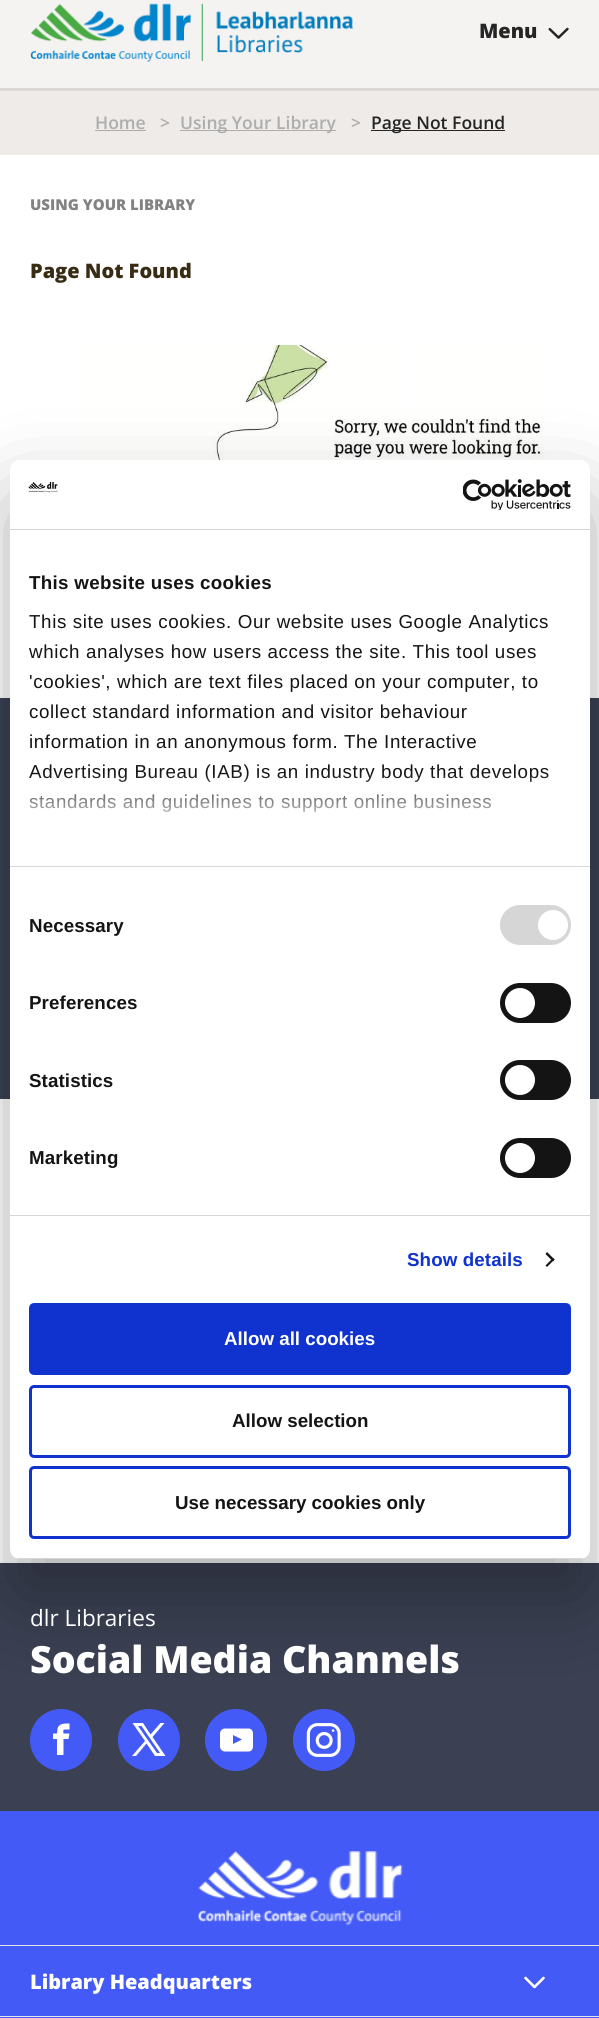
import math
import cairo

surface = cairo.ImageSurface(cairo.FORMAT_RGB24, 599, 2018)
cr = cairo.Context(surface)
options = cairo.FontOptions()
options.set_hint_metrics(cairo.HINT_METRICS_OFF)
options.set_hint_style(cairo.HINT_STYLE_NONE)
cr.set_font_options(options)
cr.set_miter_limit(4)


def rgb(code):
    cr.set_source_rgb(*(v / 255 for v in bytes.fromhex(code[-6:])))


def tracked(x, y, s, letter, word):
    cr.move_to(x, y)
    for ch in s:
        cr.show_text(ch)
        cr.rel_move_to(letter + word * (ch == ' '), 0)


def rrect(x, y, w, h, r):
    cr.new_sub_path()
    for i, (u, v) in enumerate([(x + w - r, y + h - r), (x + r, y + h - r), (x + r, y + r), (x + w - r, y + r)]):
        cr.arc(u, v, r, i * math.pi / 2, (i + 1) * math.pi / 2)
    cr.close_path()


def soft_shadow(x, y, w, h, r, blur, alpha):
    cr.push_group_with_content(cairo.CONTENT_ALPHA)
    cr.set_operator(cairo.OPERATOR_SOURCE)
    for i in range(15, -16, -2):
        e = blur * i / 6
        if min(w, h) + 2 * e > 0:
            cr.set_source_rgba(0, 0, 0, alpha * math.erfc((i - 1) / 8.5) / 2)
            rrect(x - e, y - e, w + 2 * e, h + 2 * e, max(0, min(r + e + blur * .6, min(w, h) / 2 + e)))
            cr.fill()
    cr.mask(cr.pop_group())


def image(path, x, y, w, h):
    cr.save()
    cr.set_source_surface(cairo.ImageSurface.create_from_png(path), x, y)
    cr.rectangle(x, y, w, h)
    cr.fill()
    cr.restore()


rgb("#ffffff")
cr.paint()
rgb("#f5f3f2")
cr.rectangle(0, 0, 599, 88)
cr.fill()
rgb("#dbd8d6")
cr.rectangle(0, 88, 599, 3)
cr.fill()
image("img/1.png", 30, 3, 323, 59)
image("img/2.png", 548, 27, 21, 12)
for x, y, w, h, color in [
    (0, 91, 599, 64, "#eeebe9"),
    (95, 130, 51, 1, "#adadad"),
    (180, 130, 156, 1, "#adadad"),
    (371, 130, 134, 1, "#252525"),
]:
    rgb(color)
    cr.rectangle(x, y, w, h)
    cr.fill()
image("img/3.png", 80, 344, 470, 116)
rgb("#3b4153")
cr.rectangle(0, 698, 599, 401)
cr.fill()
cr.rectangle(0, 1563, 599, 248)
cr.fill()
rgb("#435af6")
cr.arc(61, 1740, 31, 0, 2 * math.pi)
cr.fill()
rgb("#ffffff")
cr.new_path()
cr.move_to(64.5, 1729.5)
cr.line_to(69.5, 1729.5)
cr.line_to(69.5, 1723.5)
cr.curve_to(65, 1723.5, 58.5, 1723, 57.5, 1729)
cr.line_to(57, 1733.5)
cr.line_to(53, 1733.5)
cr.line_to(53, 1739)
cr.line_to(57, 1739)
cr.line_to(57, 1755)
cr.line_to(63.5, 1755)
cr.line_to(63.5, 1739)
cr.line_to(68.5, 1739)
cr.line_to(69.5, 1733.5)
cr.line_to(63.5, 1733.5)
cr.curve_to(63.5, 1732.5, 62.5, 1729.5, 64.5, 1729.5)
cr.close_path()
cr.fill()
rgb("#435af6")
cr.arc(149, 1740, 31, 0, 2 * math.pi)
cr.fill()
rgb("#ffffff")
cr.set_fill_rule(cairo.FILL_RULE_EVEN_ODD)
cr.new_path()
cr.move_to(165.5, 1756)
cr.line_to(152.5, 1737)
cr.line_to(164.5, 1723)
cr.line_to(160.5, 1723)
cr.line_to(150.5, 1734.5)
cr.line_to(143, 1723)
cr.line_to(132.5, 1723)
cr.line_to(145, 1741)
cr.line_to(132, 1756)
cr.line_to(136, 1756)
cr.line_to(146.5, 1743.5)
cr.line_to(155, 1756)
cr.close_path()
cr.move_to(141.5, 1726)
cr.line_to(160, 1753)
cr.line_to(157, 1753)
cr.line_to(138, 1726)
cr.close_path()
cr.fill()
rgb("#435af6")
cr.arc(236, 1740, 31, 0, 2 * math.pi)
cr.fill()
rgb("#ffffff")
cr.set_fill_rule(cairo.FILL_RULE_WINDING)
cr.new_path()
cr.move_to(253, 1746.5)
cr.curve_to(253, 1749.5, 251, 1751.5, 248.5, 1751.5)
cr.line_to(225, 1751.5)
cr.curve_to(222.5, 1751.5, 220, 1749.5, 220, 1746.5)
cr.line_to(220, 1733.5)
cr.curve_to(220, 1730.5, 222.5, 1728.5, 225, 1728.5)
cr.line_to(248.5, 1728.5)
cr.curve_to(251, 1728.5, 253, 1730.5, 253, 1733.5)
cr.close_path()
cr.move_to(233, 1744)
cr.line_to(242, 1739.5)
cr.line_to(233, 1735)
cr.close_path()
cr.fill()
image("img/4.png", 293, 1709, 62, 62)
rgb("#435af6")
cr.rectangle(0, 1811, 599, 207)
cr.fill()
image("img/5.png", 197, 1851, 206, 74)
rgb("#e5e7eb")
cr.rectangle(0, 1945, 599, 1)
cr.fill()
cr.rectangle(0, 2016, 599, 1)
cr.fill()
cr.new_path()
cr.move_to(543.5, 1978)
cr.line_to(534.5, 1987)
cr.line_to(525.5, 1978)
rgb("#ffffff")
cr.set_line_width(2.6)
cr.set_line_cap(cairo.LINE_CAP_ROUND)
cr.set_line_join(cairo.LINE_JOIN_ROUND)
cr.stroke()
rgb("#000000")
soft_shadow(10, 500, 580, 1099, 10, 42.5, 0.3)
rgb("#ffffff")
rrect(10, 460, 580, 1099, 10)
cr.fill()
rgb("#d6d6d6")
cr.rectangle(10, 529, 580, 1)
cr.fill()
image("img/6.png", 28, 481, 30, 12)
image("img/7.png", 463, 479, 108, 31)
cr.rectangle(10, 866, 580, 1)
cr.fill()
cr.rectangle(10, 1215, 580, 1)
cr.fill()
rrect(500, 905, 71, 40, 20)
cr.fill()
rgb("#ffffff")
cr.arc(553, 925, 15, 0, 2 * math.pi)
cr.fill()
rgb("#141414")
rrect(500, 983, 71, 40, 20)
cr.fill()
rgb("#ffffff")
cr.arc(520, 1003, 15, 0, 2 * math.pi)
cr.fill()
rgb("#141414")
rrect(500, 1060, 71, 40, 20)
cr.fill()
rgb("#ffffff")
cr.arc(520, 1080, 15, 0, 2 * math.pi)
cr.fill()
rgb("#141414")
rrect(500, 1138, 71, 40, 20)
cr.fill()
rgb("#ffffff")
cr.arc(520, 1158, 15, 0, 2 * math.pi)
cr.fill()
rgb("#141414")
cr.new_path()
cr.move_to(547, 1252)
cr.line_to(554.5, 1259.5)
cr.line_to(553, 1261.5)
cr.line_to(545.5, 1254)
cr.close_path()
cr.fill()
cr.new_path()
cr.move_to(553, 1258)
cr.line_to(554.5, 1259.5)
cr.line_to(547, 1267)
cr.line_to(545.5, 1265.5)
cr.close_path()
cr.fill()
cr.save()
rrect(10, 460, 580, 1099, 10)
cr.clip()
rgb("#d6d6d6")
cr.rectangle(10, 1558, 580, 1)
cr.fill()
cr.restore()
rgb("#1032cf")
rrect(30.5, 1304.5, 539, 69, 3.5)
cr.fill_preserve()
cr.set_line_width(3)
cr.set_line_cap(cairo.LINE_CAP_BUTT)
cr.set_line_join(cairo.LINE_JOIN_MITER)
cr.stroke()
rrect(30.5, 1386.5, 539, 70, 3.5)
cr.stroke()
rrect(30.5, 1467.5, 539, 70, 3.5)
cr.stroke()
cr.select_font_face("Open Sans ExtraBold")
cr.set_font_size(20)
rgb("#252525")
cr.move_to(479, 38)
cr.show_text("Menu")
cr.select_font_face("Open Sans SemiBold")
cr.set_font_size(17.5)
rgb("#adadad")
for x, y, s in [
    (95, 129, "Home"),
    (160, 129, ">"),
    (180, 129, "Using Your Library"),
    (351, 129, ">"),
]:
    cr.move_to(x, y)
    cr.show_text(s)
rgb("#252525")
cr.move_to(371, 129)
cr.show_text("Page Not Found")
cr.select_font_face("Open Sans ExtraBold")
cr.set_font_size(15)
rgb("#838282")
cr.move_to(30, 210)
cr.show_text("USING YOUR LIBRARY")
cr.set_font_size(20)
rgb("#382c14")
cr.move_to(30, 278)
cr.show_text("Page Not Found")
cr.select_font_face("Open Sans")
cr.set_font_size(22.5)
rgb("#ffffff")
cr.move_to(30, 1626)
cr.show_text("dlr Libraries")
cr.select_font_face("Open Sans ExtraBold")
cr.set_font_size(37.5)
cr.move_to(30, 1673)
cr.show_text("Social Media Channels")
cr.set_font_size(20)
cr.move_to(30, 1989)
cr.show_text("Library Headquarters")
cr.select_font_face("Liberation Sans", cairo.FONT_SLANT_NORMAL, cairo.FONT_WEIGHT_BOLD)
cr.set_font_size(18.75)
rgb("#141414")
tracked(29, 589, "This website uses cookies", 0.3, 0)
cr.select_font_face("Liberation Sans")
for x, y, s in [
    (29, 628, "This site uses cookies. Our website uses Google Analytics"),
    (29, 658, "which analyses how users access the site. This tool uses"),
    (29, 688, "'cookies', which are text files placed on your computer, to"),
    (29, 718, "collect standard information and visitor behaviour"),
    (29, 748, "information in an anonymous form. The Interactive"),
    (29, 778, "Advertising Bureau (IAB) is an industry body that develops"),
    (29, 808, "standards and guidelines to support online business"),
]:
    tracked(x, y, s, 0.62, 0)
gradient = cairo.LinearGradient(292, 867, 292, 773)
gradient.add_color_stop_rgba(0, 1, 1, 1, 1)
gradient.add_color_stop_rgba(0.5, 1, 1, 1, 0.8)
gradient.add_color_stop_rgba(1, 1, 1, 1, 0)
cr.set_source(gradient)
cr.rectangle(29, 774, 520, 38)
cr.fill()
cr.select_font_face("Liberation Sans", cairo.FONT_SLANT_NORMAL, cairo.FONT_WEIGHT_BOLD)
rgb("#141414")
for x, y, s in [
    (29, 932, "Necessary"),
    (29, 1009, "Preferences"),
    (29, 1087, "Statistics"),
    (29, 1164, "Marketing"),
]:
    tracked(x, y, s, 0.1, 0)
rgb("#1032cf")
tracked(407, 1266, "Show details", 0.1, 0)
rgb("#ffffff")
cr.move_to(224, 1345)
cr.show_text("Allow all cookies")
rgb("#141414")
cr.move_to(232, 1427)
cr.show_text("Allow selection")
cr.move_to(175, 1509)
cr.show_text("Use necessary cookies only")
surface.write_to_png("page.png")
